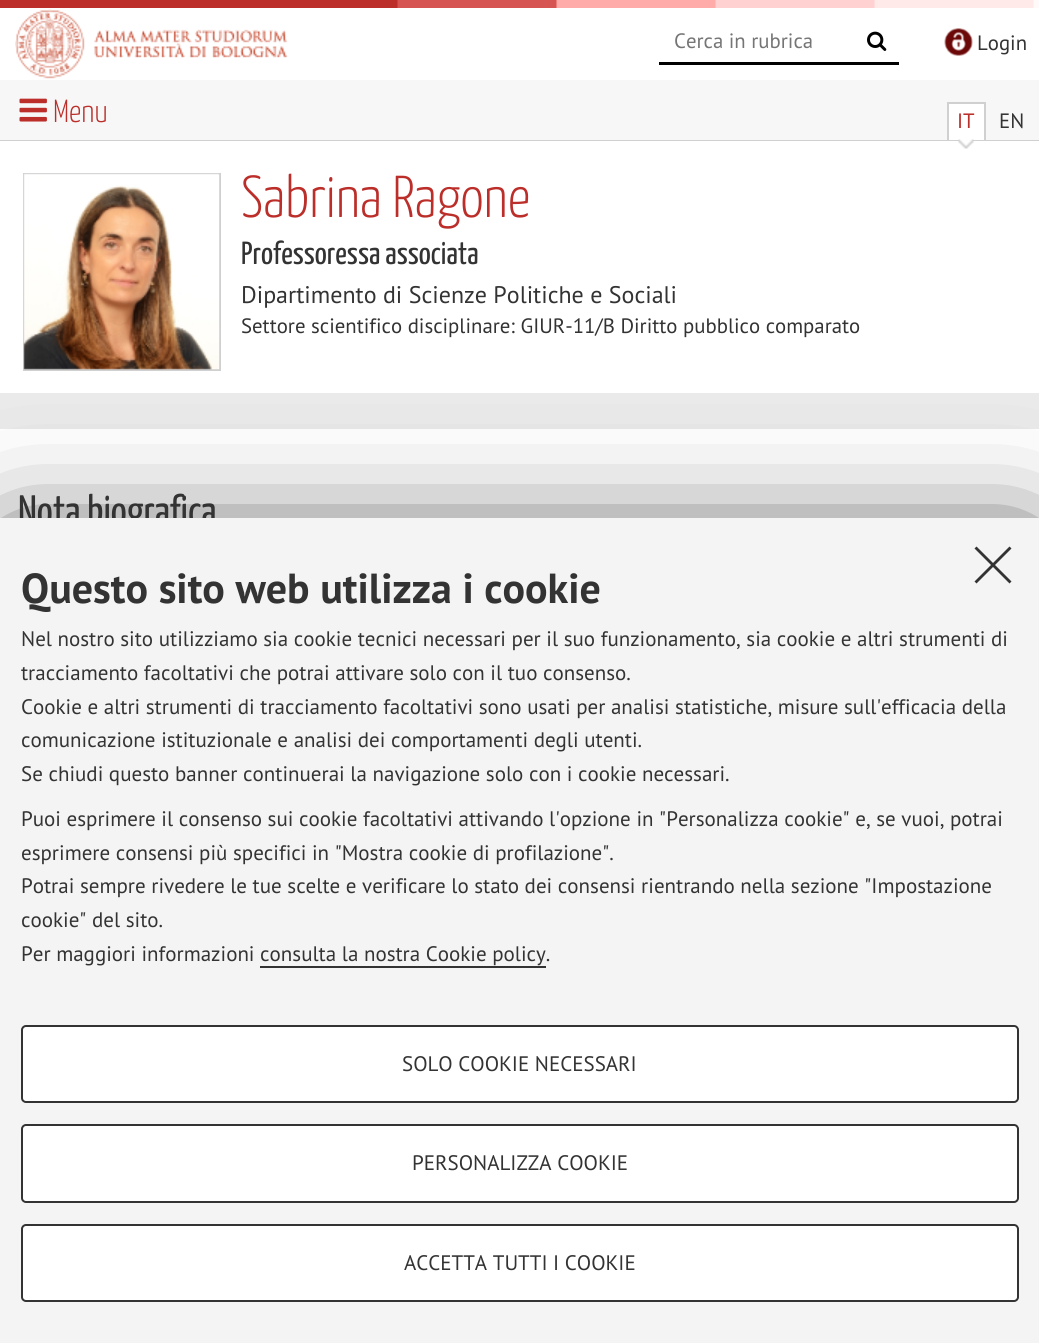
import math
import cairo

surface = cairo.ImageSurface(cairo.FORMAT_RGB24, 1039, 1343)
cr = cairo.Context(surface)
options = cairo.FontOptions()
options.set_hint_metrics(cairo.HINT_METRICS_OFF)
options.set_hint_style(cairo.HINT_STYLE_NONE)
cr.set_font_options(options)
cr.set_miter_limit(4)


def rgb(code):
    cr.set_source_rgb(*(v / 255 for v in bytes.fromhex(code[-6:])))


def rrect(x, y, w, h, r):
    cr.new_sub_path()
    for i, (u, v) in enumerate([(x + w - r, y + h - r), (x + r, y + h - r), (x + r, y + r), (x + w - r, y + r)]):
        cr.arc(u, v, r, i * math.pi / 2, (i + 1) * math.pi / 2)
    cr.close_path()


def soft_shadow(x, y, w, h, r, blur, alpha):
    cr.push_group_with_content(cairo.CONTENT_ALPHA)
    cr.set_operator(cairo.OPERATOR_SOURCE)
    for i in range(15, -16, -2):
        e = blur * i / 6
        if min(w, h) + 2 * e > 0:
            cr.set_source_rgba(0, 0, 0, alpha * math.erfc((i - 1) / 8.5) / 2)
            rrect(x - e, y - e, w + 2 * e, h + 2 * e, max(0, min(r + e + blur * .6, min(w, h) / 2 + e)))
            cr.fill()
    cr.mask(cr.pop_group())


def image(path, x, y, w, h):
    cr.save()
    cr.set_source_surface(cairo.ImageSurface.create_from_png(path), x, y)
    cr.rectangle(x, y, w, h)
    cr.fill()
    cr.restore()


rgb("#eaeaea")
cr.paint()
image("img/1.png", 0, 0, 1039, 8)
rgb("#ffffff")
cr.rectangle(0, 8, 1039, 72)
cr.fill()
image("img/2.png", 15, 9, 273, 70)
rgb("#000000")
cr.rectangle(659, 62, 240, 3)
cr.fill()
image("img/3.png", 867, 31, 20, 20)
image("img/4.png", 944, 28, 29, 28)
rgb("#f7f7f7")
cr.rectangle(0, 80, 1039, 60)
cr.fill()
rgb("#d0d0d0")
cr.rectangle(0, 140, 1039, 1)
cr.fill()
image("img/5.png", 19, 98, 28, 24)
for x, y, w, h, color in [
    (949, 104, 35, 36, "#ffffff"),
    (947, 102, 39, 2, "#d0d0d0"),
    (984, 102, 2, 38, "#d0d0d0"),
    (947, 102, 2, 38, "#d0d0d0"),
    (0, 141, 1039, 252, "#ffffff"),
]:
    rgb(color)
    cr.rectangle(x, y, w, h)
    cr.fill()
image("img/6.png", 958, 139, 16, 10)
cr.rectangle(24, 174, 196, 196)
rgb("#d0d0d0")
cr.stroke()
image("img/7.png", 23, 173, 197, 197)
rgb("#ffffff")
cr.rectangle(0, 429, 1039, 89)
cr.fill()
rgb("#000000")
soft_shadow(12, 554, 1016, 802, 0, 60, 1)
cr.select_font_face("PT Sans")
cr.set_font_size(20.8)
rgb("#757575")
cr.move_to(674, 48)
cr.show_text("Cerca in rubrica")
rgb("#333333")
cr.move_to(977, 50)
cr.show_text("Login")
cr.select_font_face("Yanone Kaffeesatz Light")
cr.set_font_size(32)
rgb("#bb2e29")
cr.move_to(53, 122)
cr.show_text("Menu")
cr.select_font_face("PT Sans")
cr.set_font_size(20.8)
cr.move_to(957, 128)
cr.show_text("IT")
rgb("#333333")
cr.move_to(999, 128)
cr.show_text("EN")
cr.select_font_face("Yanone Kaffeesatz Light")
cr.set_font_size(59)
rgb("#bb2e29")
cr.move_to(241, 217)
cr.show_text("Sabrina Ragone")
cr.select_font_face("Yanone Kaffeesatz")
cr.set_font_size(32)
rgb("#333333")
cr.move_to(241, 264)
cr.show_text("Professoressa associata")
cr.select_font_face("PT Sans")
cr.set_font_size(24)
cr.move_to(241, 303)
cr.show_text("Dipartimento di Scienze Politiche e Sociali")
cr.set_font_size(20.8)
cr.move_to(241, 333)
cr.show_text("Settore scientifico disciplinare: GIUR-11/B Diritto pubblico comparato")
cr.select_font_face("Yanone Kaffeesatz")
cr.set_font_size(42.5)
cr.move_to(18, 525)
cr.show_text("Nota biografica")
rgb("#f4f4f4")
cr.rectangle(0, 518, 1039, 825)
cr.fill()
rgb("#333333")
cr.new_path()
cr.move_to(1009.5, 546.5)
cr.line_to(1011.5, 548.5)
cr.line_to(976.5, 583.5)
cr.line_to(974.5, 581.5)
cr.close_path()
cr.fill()
cr.new_path()
cr.move_to(974.5, 548.5)
cr.line_to(976.5, 546.5)
cr.line_to(1011.5, 581.5)
cr.line_to(1009.5, 583.5)
cr.close_path()
cr.fill()
cr.select_font_face("PT Sans", cairo.FONT_SLANT_NORMAL, cairo.FONT_WEIGHT_BOLD)
cr.set_font_size(42)
cr.move_to(21, 603)
cr.show_text("Questo sito web utilizza i cookie")
cr.select_font_face("PT Sans")
cr.set_font_size(21)
for x, y, s in [
    (21, 646, "Nel nostro sito utilizziamo sia cookie tecnici necessari per il suo funzionamento, sia cookie e altri strumenti di"),
    (21, 680, "tracciamento facoltativi che potrai attivare solo con il tuo consenso."),
    (21, 714, "Cookie e altri strumenti di tracciamento facoltativi sono usati per analisi statistiche, misure sull'efficacia della"),
    (21, 747, "comunicazione istituzionale e analisi dei comportamenti degli utenti."),
    (21, 781, "Se chiudi questo banner continuerai la navigazione solo con i cookie necessari."),
    (21, 826, "Puoi esprimere il consenso sui cookie facoltativi attivando l'opzione in \"Personalizza cookie\" e, se vuoi, potrai"),
    (21, 860, "esprimere consensi più specifici in \"Mostra cookie di profilazione\"."),
    (21, 893, "Potrai sempre rivedere le tue scelte e verificare lo stato dei consensi rientrando nella sezione \"Impostazione"),
    (21, 927, "cookie\" del sito."),
    (21, 961, "Per maggiori informazioni consulta la nostra Cookie policy."),
]:
    cr.move_to(x, y)
    cr.show_text(s)
cr.rectangle(260, 966, 286, 2)
cr.fill()
rgb("#ffffff")
rrect(22, 1026, 996, 76, 4)
cr.fill_preserve()
rgb("#333333")
cr.stroke()
cr.move_to(402, 1071)
cr.show_text("SOLO COOKIE NECESSARI")
rgb("#ffffff")
rrect(22, 1125, 996, 77, 4)
cr.fill_preserve()
rgb("#333333")
cr.stroke()
cr.move_to(412, 1170)
cr.show_text("PERSONALIZZA COOKIE")
rgb("#ffffff")
rrect(22, 1225, 996, 76, 4)
cr.fill_preserve()
rgb("#333333")
cr.stroke()
cr.move_to(404, 1270)
cr.show_text("ACCETTA TUTTI I COOKIE")
surface.write_to_png("page.png")
